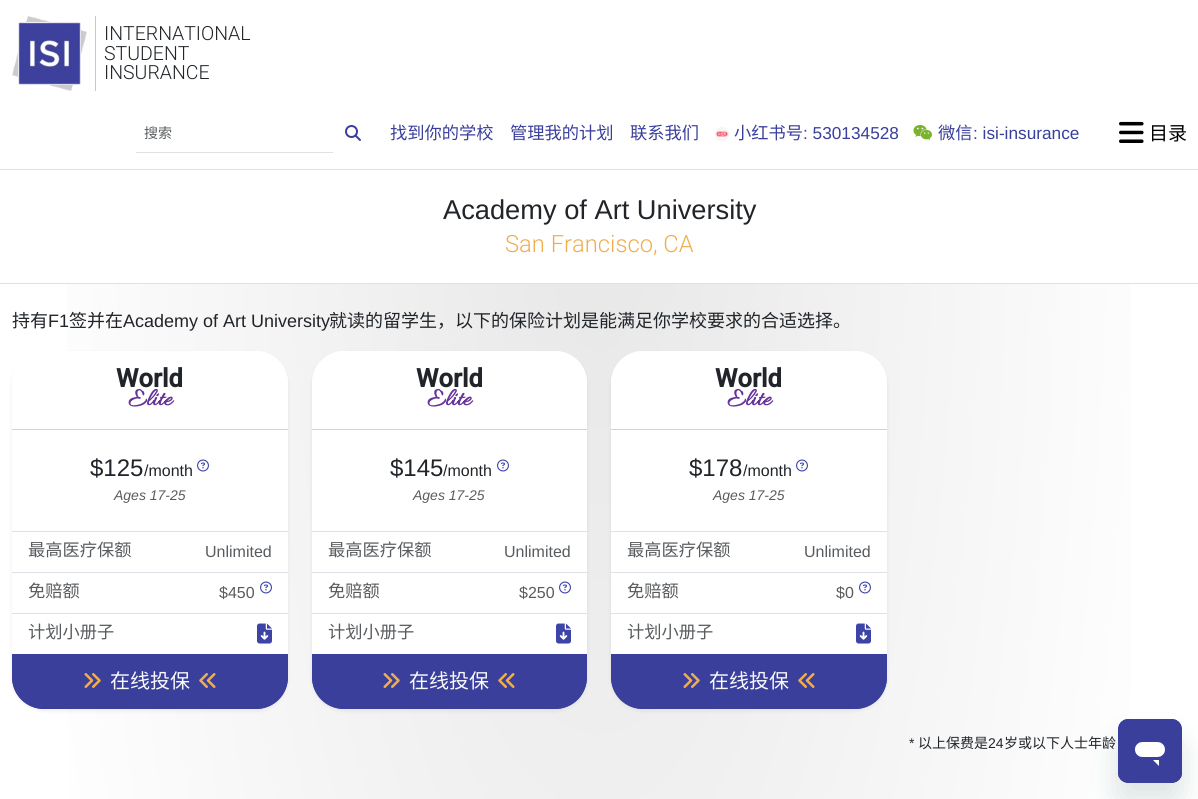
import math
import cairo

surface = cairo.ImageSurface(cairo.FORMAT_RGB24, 1198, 799)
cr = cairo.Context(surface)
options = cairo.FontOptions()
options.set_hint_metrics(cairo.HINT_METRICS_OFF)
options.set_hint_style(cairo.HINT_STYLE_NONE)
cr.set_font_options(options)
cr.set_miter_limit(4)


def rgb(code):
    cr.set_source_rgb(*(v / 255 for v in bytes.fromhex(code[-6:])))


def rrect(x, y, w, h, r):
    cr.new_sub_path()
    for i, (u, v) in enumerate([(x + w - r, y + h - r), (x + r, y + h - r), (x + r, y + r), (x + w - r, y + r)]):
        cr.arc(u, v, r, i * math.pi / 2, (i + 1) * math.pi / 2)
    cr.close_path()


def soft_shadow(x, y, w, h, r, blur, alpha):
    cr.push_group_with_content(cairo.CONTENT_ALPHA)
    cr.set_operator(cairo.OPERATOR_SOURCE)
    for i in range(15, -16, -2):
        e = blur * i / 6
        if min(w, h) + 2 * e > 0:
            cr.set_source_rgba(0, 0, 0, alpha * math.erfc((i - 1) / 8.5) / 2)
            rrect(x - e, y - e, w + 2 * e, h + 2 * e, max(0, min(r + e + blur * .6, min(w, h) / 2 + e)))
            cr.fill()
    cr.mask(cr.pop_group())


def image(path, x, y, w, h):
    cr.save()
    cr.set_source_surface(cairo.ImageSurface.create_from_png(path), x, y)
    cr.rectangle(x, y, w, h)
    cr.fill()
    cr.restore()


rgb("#ffffff")
cr.paint()
image("img/1.png", 12, 16, 75, 75)
rgb("#c8c9ca")
cr.rectangle(95, 16, 1, 75)
cr.fill()
rgb("#dee2e6")
cr.rectangle(136, 152, 197, 1)
cr.fill()
image("img/2.png", 345, 125, 16, 16)
image("img/3.png", 715, 127, 14, 14)
image("img/4.png", 913, 124, 19, 16)
image("img/5.png", 1119, 121, 25, 22)
gradient = cairo.RadialGradient(0, 0, 0, 0, 0, 1)
gradient.set_matrix(cairo.Matrix(1 / 847, 0, 0, 1 / 2578, -1 * 599 / 847, -1 * 169 / 2578))
gradient.add_color_stop_rgba(0, 0.906, 0.906, 0.906, 1)
gradient.add_color_stop_rgba(0.7, 1, 1, 1, 1)
cr.set_source(gradient)
cr.rectangle(67, 284, 1064, 515)
cr.fill()
rgb("#dee2e6")
cr.rectangle(0, 169, 1198, 1)
cr.fill()
cr.rectangle(0, 283, 1198, 1)
cr.fill()
rgb("#000000")
soft_shadow(12, 353, 276, 358, 32, 2, 0.07)
rgb("#ffffff")
rrect(12, 351, 276, 358, 32)
cr.fill()
cr.new_path()
cr.move_to(44, 351)
cr.line_to(256, 351)
cr.curve_to(273.5, 351, 288, 365.5, 288, 383)
cr.line_to(288, 430)
cr.line_to(12, 430)
cr.line_to(12, 383)
cr.curve_to(12, 365.5, 26.5, 351, 44, 351)
cr.close_path()
cr.fill()
rgb("#d2d2d2")
cr.rectangle(12, 429, 276, 1)
cr.fill()
rgb("#dee2e6")
cr.rectangle(12, 531, 276, 1)
cr.fill()
image("img/6.png", 197, 459, 12, 13)
cr.rectangle(12, 572, 276, 1)
cr.fill()
cr.rectangle(12, 613, 276, 1)
cr.fill()
image("img/6.png", 260, 581, 12, 13)
image("img/7.png", 257, 623, 15, 21)
rgb("#3a3f9b")
cr.new_path()
cr.move_to(12, 654)
cr.line_to(288, 654)
cr.line_to(288, 677)
cr.curve_to(288, 694.5, 273.5, 709, 256, 709)
cr.line_to(44, 709)
cr.curve_to(26.5, 709, 12, 694.5, 12, 677)
cr.close_path()
cr.fill()
cr.set_fill_rule(cairo.FILL_RULE_EVEN_ODD)
cr.new_path()
cr.move_to(12, 654)
cr.line_to(288, 654)
cr.line_to(288, 677)
cr.curve_to(288, 695, 274, 709, 256, 709)
cr.line_to(44, 709)
cr.curve_to(26, 709, 12, 695, 12, 677)
cr.close_path()
cr.move_to(13, 654)
cr.line_to(287, 654)
cr.line_to(287, 677)
cr.curve_to(287, 694, 273, 708, 256, 708)
cr.line_to(44, 708)
cr.curve_to(27, 708, 13, 694, 13, 677)
cr.close_path()
cr.fill()
image("img/8.png", 84, 673, 17, 15)
image("img/9.png", 199, 673, 17, 15)
rgb("#000000")
soft_shadow(312, 353, 275, 358, 32, 2, 0.07)
rgb("#ffffff")
rrect(312, 351, 275, 358, 32)
cr.fill()
cr.new_path()
cr.move_to(344, 351)
cr.line_to(555, 351)
cr.curve_to(572.5, 351, 587, 365.5, 587, 383)
cr.line_to(587, 430)
cr.line_to(312, 430)
cr.line_to(312, 383)
cr.curve_to(312, 365.5, 326.5, 351, 344, 351)
cr.close_path()
cr.fill()
rgb("#d2d2d2")
cr.rectangle(312, 429, 275, 1)
cr.fill()
rgb("#dee2e6")
cr.rectangle(312, 531, 275, 1)
cr.fill()
image("img/6.png", 497, 459, 12, 13)
cr.rectangle(312, 572, 275, 1)
cr.fill()
cr.rectangle(312, 613, 275, 1)
cr.fill()
image("img/6.png", 559, 581, 12, 13)
image("img/7.png", 556, 623, 15, 21)
rgb("#3a3f9b")
cr.new_path()
cr.move_to(312, 654)
cr.line_to(587, 654)
cr.line_to(587, 677)
cr.curve_to(587, 694.5, 572.5, 709, 555, 709)
cr.line_to(344, 709)
cr.curve_to(326.5, 709, 312, 694.5, 312, 677)
cr.close_path()
cr.fill()
cr.new_path()
cr.move_to(312, 654)
cr.line_to(587, 654)
cr.line_to(587, 677)
cr.curve_to(587, 695, 573, 709, 555, 709)
cr.line_to(344, 709)
cr.curve_to(326, 709, 312, 695, 312, 677)
cr.close_path()
cr.move_to(313, 654)
cr.line_to(586, 654)
cr.line_to(586, 677)
cr.curve_to(586, 694, 572, 708, 555, 708)
cr.line_to(344, 708)
cr.curve_to(327, 708, 313, 694, 313, 677)
cr.close_path()
cr.fill()
image("img/8.png", 383, 673, 17, 15)
image("img/9.png", 498, 673, 17, 15)
rgb("#000000")
soft_shadow(611, 353, 276, 358, 32, 2, 0.07)
rgb("#ffffff")
rrect(611, 351, 276, 358, 32)
cr.fill()
cr.new_path()
cr.move_to(643, 351)
cr.line_to(855, 351)
cr.curve_to(872.5, 351, 887, 365.5, 887, 383)
cr.line_to(887, 430)
cr.line_to(611, 430)
cr.line_to(611, 383)
cr.curve_to(611, 365.5, 625.5, 351, 643, 351)
cr.close_path()
cr.fill()
rgb("#d2d2d2")
cr.rectangle(611, 429, 276, 1)
cr.fill()
rgb("#dee2e6")
cr.rectangle(611, 531, 276, 1)
cr.fill()
image("img/6.png", 796, 459, 12, 13)
cr.rectangle(611, 572, 276, 1)
cr.fill()
cr.rectangle(611, 613, 276, 1)
cr.fill()
image("img/6.png", 859, 581, 12, 13)
image("img/7.png", 856, 623, 15, 21)
rgb("#3a3f9b")
cr.new_path()
cr.move_to(611, 654)
cr.line_to(887, 654)
cr.line_to(887, 677)
cr.curve_to(887, 694.5, 872.5, 709, 855, 709)
cr.line_to(643, 709)
cr.curve_to(625.5, 709, 611, 694.5, 611, 677)
cr.close_path()
cr.fill()
cr.new_path()
cr.move_to(611, 654)
cr.line_to(887, 654)
cr.line_to(887, 677)
cr.curve_to(887, 695, 873, 709, 855, 709)
cr.line_to(643, 709)
cr.curve_to(625, 709, 611, 695, 611, 677)
cr.close_path()
cr.move_to(612, 654)
cr.line_to(886, 654)
cr.line_to(886, 677)
cr.curve_to(886, 694, 872, 708, 855, 708)
cr.line_to(643, 708)
cr.curve_to(626, 708, 612, 694, 612, 677)
cr.close_path()
cr.fill()
image("img/8.png", 683, 673, 17, 15)
image("img/9.png", 798, 673, 17, 15)
rgb("#17494d")
soft_shadow(1118, 739, 64, 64, 10, 15, 0.15)
image("img/10.png", 1118, 719, 64, 64)
cr.select_font_face("Roboto Light")
cr.set_font_size(19.5)
rgb("#212529")
for x, y, s in [
    (104, 40, "INTERNATIONAL"),
    (104, 60, "STUDENT"),
    (104, 79, "INSURANCE"),
]:
    cr.move_to(x, y)
    cr.show_text(s)
cr.select_font_face("Noto Sans CJK SC")
cr.set_font_size(14)
rgb("#595c5f")
cr.move_to(144, 138)
cr.show_text("搜索")
cr.set_font_size(17.25)
rgb("#3a3f9b")
for x, y, s in [
    (390, 139, "找到你的学校"),
    (510, 139, "管理我的计划"),
    (630, 139, "联系我们"),
    (734, 139, "小红书号"),
]:
    cr.move_to(x, y)
    cr.show_text(s)
cr.select_font_face("Liberation Sans")
cr.move_to(803, 139)
cr.show_text(": 530134528")
cr.select_font_face("Noto Sans CJK SC")
cr.move_to(938, 139)
cr.show_text("微信")
cr.select_font_face("Liberation Sans")
cr.move_to(973, 139)
cr.show_text(": isi-insurance")
cr.select_font_face("Noto Sans CJK SC")
cr.set_font_size(19)
rgb("#000000")
cr.move_to(1149, 140)
cr.show_text("目录")
cr.select_font_face("Liberation Sans")
cr.set_font_size(27.25)
rgb("#212529")
cr.move_to(443, 219)
cr.show_text("Academy of Art University")
cr.select_font_face("Roboto Light")
cr.set_font_size(23.75)
rgb("#f0ad4e")
cr.move_to(505, 252)
cr.show_text("San Francisco, CA")
cr.select_font_face("Noto Sans CJK SC")
cr.set_font_size(18)
rgb("#212529")
cr.move_to(12, 327)
cr.show_text("持有")
cr.select_font_face("Liberation Sans")
cr.move_to(48, 327)
cr.show_text("F1")
cr.select_font_face("Noto Sans CJK SC")
cr.move_to(69, 327)
cr.show_text("签并在")
cr.select_font_face("Liberation Sans")
cr.move_to(123, 327)
cr.show_text("Academy of Art University")
cr.select_font_face("Noto Sans CJK SC")
cr.move_to(329, 327)
cr.show_text("就读的留学生，以下的保险计划是能满足你学校要求的合适选择。")
cr.select_font_face("Roboto", cairo.FONT_SLANT_NORMAL, cairo.FONT_WEIGHT_BOLD)
cr.set_font_size(25.5)
cr.move_to(116, 387)
cr.show_text("World")
cr.select_font_face("Allura", cairo.FONT_SLANT_NORMAL, cairo.FONT_WEIGHT_BOLD)
rgb("#663399")
cr.move_to(128, 405)
cr.show_text("Elite")
cr.select_font_face("Liberation Sans")
cr.set_font_size(24)
rgb("#212529")
cr.move_to(90, 476)
cr.show_text("$125")
cr.set_font_size(16)
cr.move_to(144, 476)
cr.show_text("/month")
cr.select_font_face("Liberation Sans", cairo.FONT_SLANT_ITALIC)
cr.set_font_size(14)
rgb("#595c5f")
cr.move_to(114, 500)
cr.show_text("Ages 17-25")
cr.select_font_face("Noto Sans CJK SC")
cr.set_font_size(17.25)
cr.move_to(28, 556)
cr.show_text("最高医疗保额")
cr.select_font_face("Liberation Sans")
cr.set_font_size(16)
cr.move_to(205, 557)
cr.show_text("Unlimited")
cr.select_font_face("Noto Sans CJK SC")
cr.set_font_size(17.25)
cr.move_to(28, 597)
cr.show_text("免赔额")
cr.select_font_face("Liberation Sans")
cr.set_font_size(16)
cr.move_to(219, 598)
cr.show_text("$450")
cr.select_font_face("Noto Sans CJK SC")
cr.set_font_size(17.25)
cr.move_to(28, 638)
cr.show_text("计划小册子")
cr.set_font_size(20)
rgb("#f8f9fa")
cr.move_to(110, 688)
cr.show_text("在线投保")
cr.select_font_face("Roboto", cairo.FONT_SLANT_NORMAL, cairo.FONT_WEIGHT_BOLD)
cr.set_font_size(25.5)
rgb("#212529")
cr.move_to(416, 387)
cr.show_text("World")
cr.select_font_face("Allura", cairo.FONT_SLANT_NORMAL, cairo.FONT_WEIGHT_BOLD)
rgb("#663399")
cr.move_to(427, 405)
cr.show_text("Elite")
cr.select_font_face("Liberation Sans")
cr.set_font_size(24)
rgb("#212529")
cr.move_to(390, 476)
cr.show_text("$145")
cr.set_font_size(16)
cr.move_to(443, 476)
cr.show_text("/month")
cr.select_font_face("Liberation Sans", cairo.FONT_SLANT_ITALIC)
cr.set_font_size(14)
rgb("#595c5f")
cr.move_to(413, 500)
cr.show_text("Ages 17-25")
cr.select_font_face("Noto Sans CJK SC")
cr.set_font_size(17.25)
cr.move_to(328, 556)
cr.show_text("最高医疗保额")
cr.select_font_face("Liberation Sans")
cr.set_font_size(16)
cr.move_to(504, 557)
cr.show_text("Unlimited")
cr.select_font_face("Noto Sans CJK SC")
cr.set_font_size(17.25)
cr.move_to(328, 597)
cr.show_text("免赔额")
cr.select_font_face("Liberation Sans")
cr.set_font_size(16)
cr.move_to(519, 598)
cr.show_text("$250")
cr.select_font_face("Noto Sans CJK SC")
cr.set_font_size(17.25)
cr.move_to(328, 638)
cr.show_text("计划小册子")
cr.set_font_size(20)
rgb("#f8f9fa")
cr.move_to(409, 688)
cr.show_text("在线投保")
cr.select_font_face("Roboto", cairo.FONT_SLANT_NORMAL, cairo.FONT_WEIGHT_BOLD)
cr.set_font_size(25.5)
rgb("#212529")
cr.move_to(715, 387)
cr.show_text("World")
cr.select_font_face("Allura", cairo.FONT_SLANT_NORMAL, cairo.FONT_WEIGHT_BOLD)
rgb("#663399")
cr.move_to(727, 405)
cr.show_text("Elite")
cr.select_font_face("Liberation Sans")
cr.set_font_size(24)
rgb("#212529")
cr.move_to(689, 476)
cr.show_text("$178")
cr.set_font_size(16)
cr.move_to(743, 476)
cr.show_text("/month")
cr.select_font_face("Liberation Sans", cairo.FONT_SLANT_ITALIC)
cr.set_font_size(14)
rgb("#595c5f")
cr.move_to(713, 500)
cr.show_text("Ages 17-25")
cr.select_font_face("Noto Sans CJK SC")
cr.set_font_size(17.25)
cr.move_to(627, 556)
cr.show_text("最高医疗保额")
cr.select_font_face("Liberation Sans")
cr.set_font_size(16)
cr.move_to(804, 557)
cr.show_text("Unlimited")
cr.select_font_face("Noto Sans CJK SC")
cr.set_font_size(17.25)
cr.move_to(627, 597)
cr.show_text("免赔额")
cr.select_font_face("Liberation Sans")
cr.set_font_size(16)
cr.move_to(836, 598)
cr.show_text("$0")
cr.select_font_face("Noto Sans CJK SC")
cr.set_font_size(17.25)
cr.move_to(627, 638)
cr.show_text("计划小册子")
cr.set_font_size(20)
rgb("#f8f9fa")
cr.move_to(709, 688)
cr.show_text("在线投保")
cr.select_font_face("Liberation Sans")
cr.set_font_size(14)
rgb("#212529")
cr.move_to(909, 748)
cr.show_text("*")
cr.select_font_face("Noto Sans CJK SC")
cr.move_to(918, 748)
cr.show_text("以上保费是")
cr.select_font_face("Liberation Sans")
cr.move_to(988, 748)
cr.show_text("24")
cr.select_font_face("Noto Sans CJK SC")
cr.move_to(1004, 748)
cr.show_text("岁或以下人士年龄")
surface.write_to_png("page.png")
